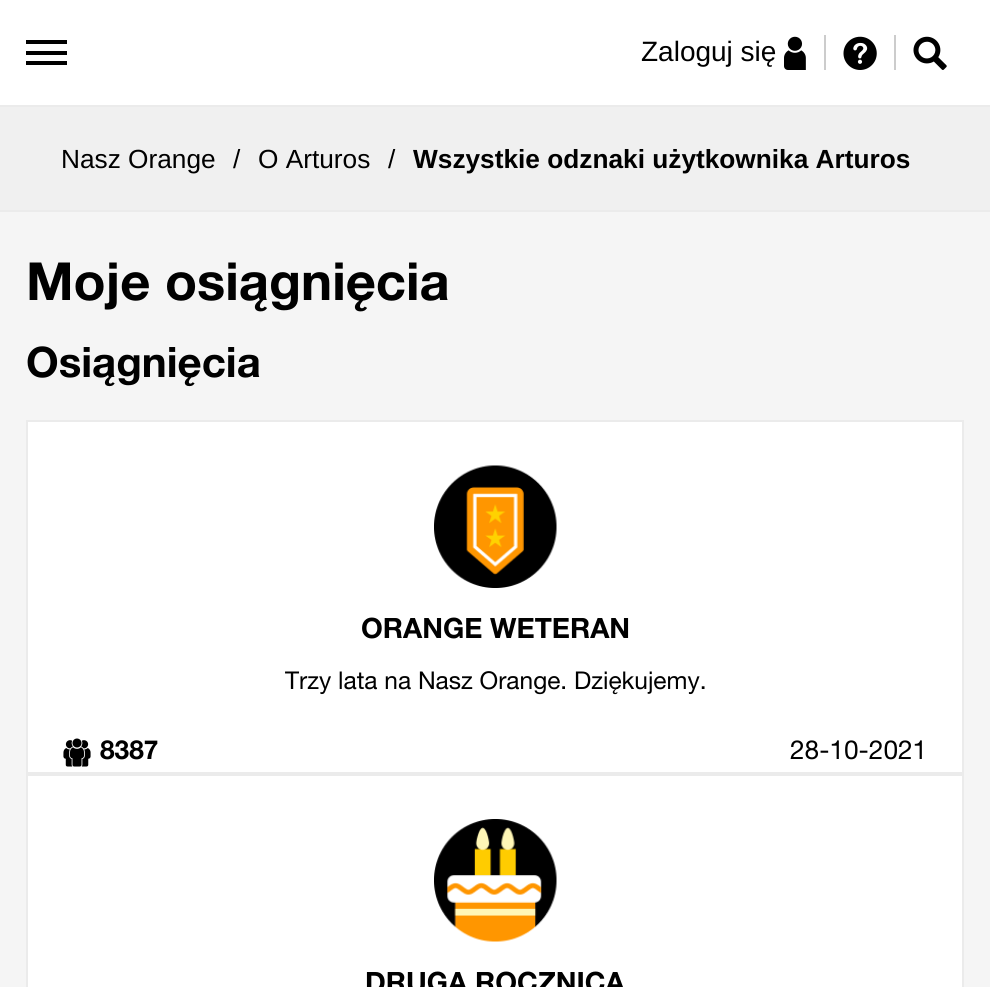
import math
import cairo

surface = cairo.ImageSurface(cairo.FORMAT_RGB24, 990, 987)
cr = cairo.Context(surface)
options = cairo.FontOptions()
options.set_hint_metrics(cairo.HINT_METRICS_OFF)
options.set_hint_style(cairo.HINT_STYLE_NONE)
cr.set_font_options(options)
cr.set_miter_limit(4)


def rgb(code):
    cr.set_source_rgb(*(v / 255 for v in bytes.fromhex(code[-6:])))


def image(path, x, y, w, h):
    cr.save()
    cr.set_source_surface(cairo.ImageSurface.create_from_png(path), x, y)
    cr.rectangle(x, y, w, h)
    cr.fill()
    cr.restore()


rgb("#f5f5f5")
cr.paint()
for x, y, w, h, color in [
    (0, 0, 990, 105, "#ffffff"),
    (26, 51, 41, 4, "#000000"),
    (26, 40, 41, 4, "#000000"),
    (26, 61, 41, 4, "#000000"),
    (824, 35, 2, 35, "#cccccc"),
]:
    rgb(color)
    cr.rectangle(x, y, w, h)
    cr.fill()
image("img/1.png", 784, 36, 22, 34)
cr.rectangle(894, 35, 2, 35)
cr.fill()
image("img/2.png", 843, 36, 34, 34)
image("img/3.png", 913, 36, 34, 34)
for x, y, w, h, color in [
    (0, 107, 990, 103, "#f0f0f0"),
    (0, 105, 990, 2, "#ebebeb"),
    (0, 210, 990, 2, "#ebebeb"),
]:
    rgb(color)
    cr.rectangle(x, y, w, h)
    cr.fill()
rgb("#ffffff")
cr.rectangle(27, 421, 936, 352)
cr.fill_preserve()
rgb("#ebebeb")
cr.stroke()
image("img/4.png", 434, 465, 123, 123)
image("img/5.png", 63, 738, 28, 29)
rgb("#ffffff")
cr.rectangle(27, 775, 936, 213)
cr.fill_preserve()
rgb("#ebebeb")
cr.stroke()
image("img/6.png", 434, 819, 123, 123)
cr.select_font_face("Liberation Sans")
cr.set_font_size(28)
rgb("#000000")
cr.move_to(641, 61)
cr.show_text("Zaloguj się")
cr.set_font_size(26.25)
for x, y, s in [
    (61, 168, "Nasz Orange"),
    (233, 168, "/"),
    (258, 168, "O Arturos"),
    (388, 168, "/"),
]:
    cr.move_to(x, y)
    cr.show_text(s)
cr.select_font_face("Liberation Sans", cairo.FONT_SLANT_NORMAL, cairo.FONT_WEIGHT_BOLD)
cr.move_to(413, 168)
cr.show_text("Wszystkie odznaki użytkownika Arturos")
cr.select_font_face("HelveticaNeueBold", cairo.FONT_SLANT_NORMAL, cairo.FONT_WEIGHT_BOLD)
cr.set_font_size(52.5)
cr.move_to(26, 300)
cr.show_text("Moje osiągnięcia")
cr.set_font_size(42)
cr.move_to(26, 377)
cr.show_text("Osiągnięcia")
cr.set_font_size(28)
cr.move_to(361, 638)
cr.show_text("ORANGE WETERAN")
cr.select_font_face("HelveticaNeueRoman")
cr.set_font_size(24.5)
cr.move_to(285, 689)
cr.show_text("Trzy lata na Nasz Orange. Dziękujemy.")
cr.select_font_face("HelveticaNeueBold", cairo.FONT_SLANT_NORMAL, cairo.FONT_WEIGHT_BOLD)
cr.set_font_size(26.25)
cr.move_to(100, 759)
cr.show_text("8387")
cr.select_font_face("HelveticaNeueRoman")
cr.move_to(790, 759)
cr.show_text("28-10-2021")
cr.select_font_face("HelveticaNeueBold", cairo.FONT_SLANT_NORMAL, cairo.FONT_WEIGHT_BOLD)
cr.set_font_size(28)
cr.move_to(365, 992)
cr.show_text("DRUGA ROCZNICA")
surface.write_to_png("page.png")
